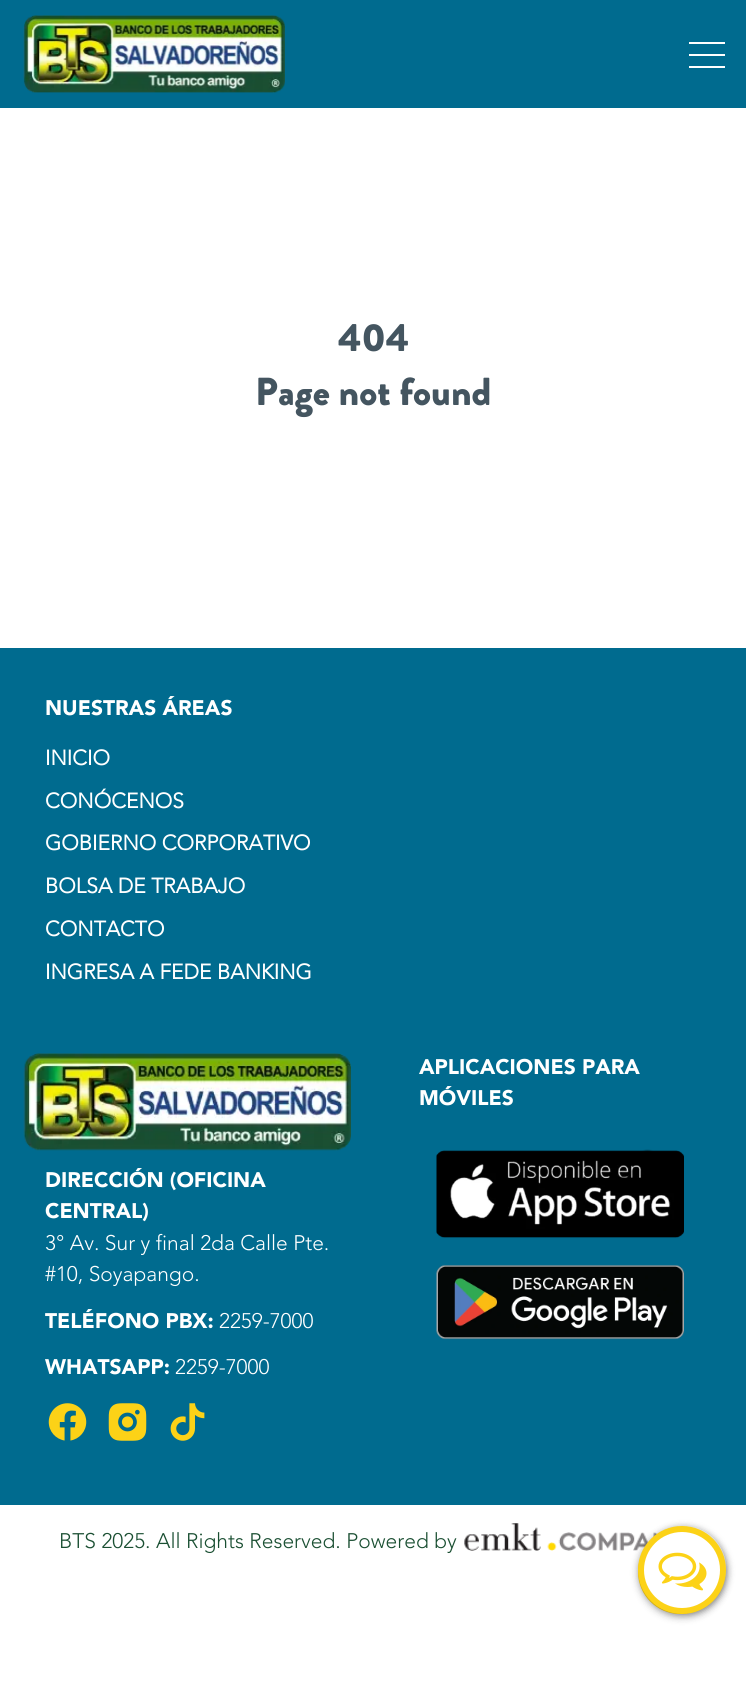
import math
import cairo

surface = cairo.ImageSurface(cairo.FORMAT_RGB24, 746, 1697)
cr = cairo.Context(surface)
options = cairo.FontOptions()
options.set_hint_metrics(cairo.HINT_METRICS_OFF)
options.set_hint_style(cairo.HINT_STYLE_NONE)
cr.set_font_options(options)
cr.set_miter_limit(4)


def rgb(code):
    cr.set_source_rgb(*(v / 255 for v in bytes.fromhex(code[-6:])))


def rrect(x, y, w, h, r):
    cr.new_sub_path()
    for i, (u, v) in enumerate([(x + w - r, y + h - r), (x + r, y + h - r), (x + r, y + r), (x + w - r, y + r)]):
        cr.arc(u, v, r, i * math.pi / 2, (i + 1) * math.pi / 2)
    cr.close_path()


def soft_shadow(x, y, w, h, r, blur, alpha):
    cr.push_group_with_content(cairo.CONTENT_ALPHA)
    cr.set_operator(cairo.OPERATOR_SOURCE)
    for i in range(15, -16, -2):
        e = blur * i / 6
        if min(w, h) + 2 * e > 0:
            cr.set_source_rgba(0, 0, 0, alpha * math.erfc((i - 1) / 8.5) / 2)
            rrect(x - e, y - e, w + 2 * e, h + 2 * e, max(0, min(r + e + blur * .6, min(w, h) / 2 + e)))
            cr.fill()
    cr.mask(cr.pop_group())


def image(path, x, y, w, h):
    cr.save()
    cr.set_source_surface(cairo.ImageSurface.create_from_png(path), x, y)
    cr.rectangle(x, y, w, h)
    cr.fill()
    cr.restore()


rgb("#ffffff")
cr.paint()
rgb("#006b8f")
cr.rectangle(0, 0, 746, 108)
cr.fill()
image("img/1.png", 23, 15, 262, 78)
for x, y, w, h, color in [
    (689, 66, 36, 2, "#ffffff"),
    (689, 42, 36, 2, "#ffffff"),
    (689, 54, 36, 2, "#ffffff"),
    (0, 648, 746, 857, "#006b8f"),
]:
    rgb(color)
    cr.rectangle(x, y, w, h)
    cr.fill()
image("img/2.png", 436, 1149, 248, 89)
image("img/3.png", 436, 1265, 248, 75)
image("img/4.png", 23, 1053, 328, 98)
image("img/5.png", 48, 1403, 39, 38)
image("img/6.png", 108, 1403, 39, 38)
image("img/7.png", 170, 1403, 35, 38)
image("img/8.png", 464, 1523, 193, 28)
rgb("#000000")
soft_shadow(642, 1529, 84, 84, 42, 4, 0.46)
cr.set_source_rgba(0.976, 0.976, 0.976, 0.77)
cr.arc(684, 1568, 42, 0, 2 * math.pi)
cr.fill()
rgb("#fcd217")
cr.arc(680, 1572, 42, 0, 2 * math.pi)
cr.fill()
rgb("#000000")
soft_shadow(638, 1529, 88, 88, 44, 4, 0.26)
rgb("#ffffff")
cr.arc(682, 1570, 41, 0, 2 * math.pi)
cr.fill_preserve()
rgb("#fcd217")
cr.set_line_width(6)
cr.stroke()
image("img/9.png", 658, 1552, 49, 39)
cr.select_font_face("Brandon Grotesque Black")
cr.set_font_size(39)
rgb("#445560")
cr.move_to(338, 351)
cr.show_text("404")
cr.move_to(255, 405)
cr.show_text("Page not found")
cr.select_font_face("Avenir Black")
cr.set_font_size(21)
rgb("#ffffff")
cr.move_to(45, 715)
cr.show_text("NUESTRAS ÁREAS")
cr.select_font_face("Avenir", cairo.FONT_SLANT_NORMAL, cairo.FONT_WEIGHT_BOLD)
for x, y, s in [
    (45, 765, "INICIO"),
    (45, 808, "CONÓCENOS"),
    (45, 850, "GOBIERNO CORPORATIVO"),
    (45, 893, "BOLSA DE TRABAJO"),
    (45, 936, "CONTACTO"),
    (45, 979, "INGRESA A FEDE BANKING"),
]:
    cr.move_to(x, y)
    cr.show_text(s)
cr.select_font_face("Avenir Black")
for x, y, s in [
    (419, 1074, "APLICACIONES PARA"),
    (419, 1105, "MÓVILES"),
    (45, 1187, "DIRECCIÓN (OFICINA"),
    (45, 1218, "CENTRAL)"),
]:
    cr.move_to(x, y)
    cr.show_text(s)
cr.select_font_face("Avenir Light")
cr.move_to(45, 1250)
cr.show_text("3° Av. Sur y final 2da Calle Pte.")
cr.move_to(45, 1281)
cr.show_text("#10, Soyapango.")
cr.select_font_face("Avenir Black")
cr.move_to(45, 1328)
cr.show_text("TELÉFONO PBX:")
cr.select_font_face("Avenir Light")
cr.move_to(219, 1328)
cr.show_text("2259-7000")
cr.select_font_face("Avenir Black")
cr.move_to(45, 1374)
cr.show_text("WHATSAPP:")
cr.select_font_face("Avenir Light")
cr.move_to(175, 1374)
cr.show_text("2259-7000")
rgb("#1a4f32")
cr.move_to(59, 1548)
cr.show_text("BTS 2025. All Rights Reserved. Powered by")
surface.write_to_png("page.png")
